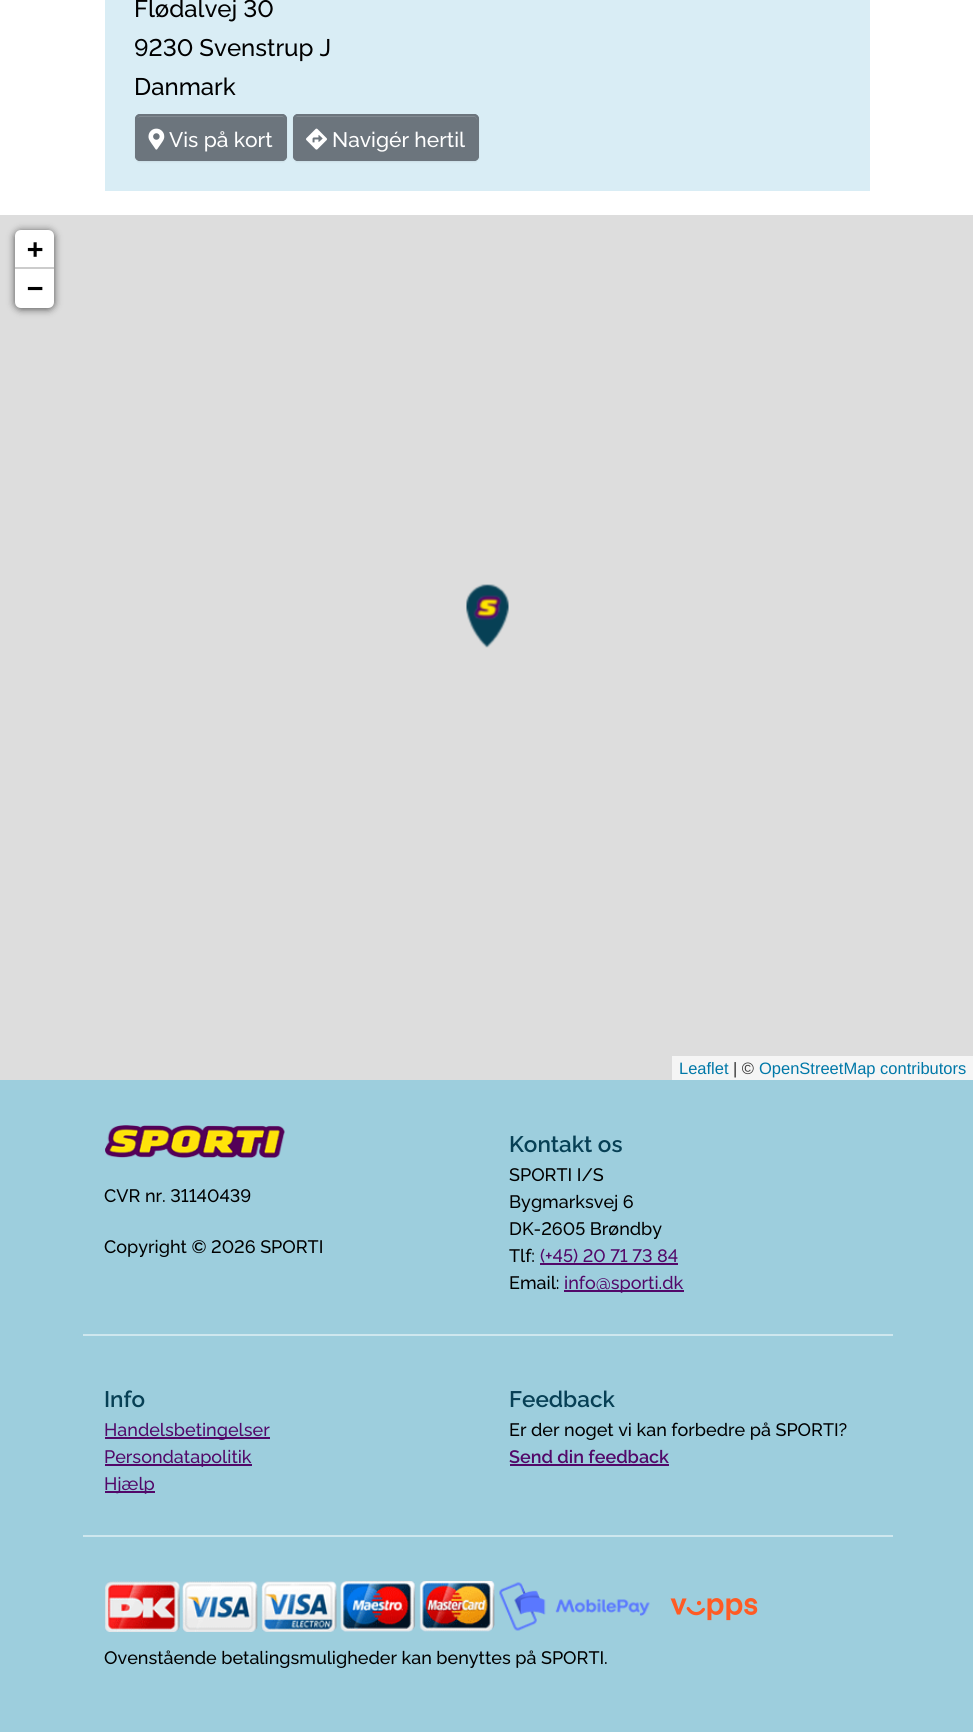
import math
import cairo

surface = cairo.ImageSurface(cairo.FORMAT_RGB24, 973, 1732)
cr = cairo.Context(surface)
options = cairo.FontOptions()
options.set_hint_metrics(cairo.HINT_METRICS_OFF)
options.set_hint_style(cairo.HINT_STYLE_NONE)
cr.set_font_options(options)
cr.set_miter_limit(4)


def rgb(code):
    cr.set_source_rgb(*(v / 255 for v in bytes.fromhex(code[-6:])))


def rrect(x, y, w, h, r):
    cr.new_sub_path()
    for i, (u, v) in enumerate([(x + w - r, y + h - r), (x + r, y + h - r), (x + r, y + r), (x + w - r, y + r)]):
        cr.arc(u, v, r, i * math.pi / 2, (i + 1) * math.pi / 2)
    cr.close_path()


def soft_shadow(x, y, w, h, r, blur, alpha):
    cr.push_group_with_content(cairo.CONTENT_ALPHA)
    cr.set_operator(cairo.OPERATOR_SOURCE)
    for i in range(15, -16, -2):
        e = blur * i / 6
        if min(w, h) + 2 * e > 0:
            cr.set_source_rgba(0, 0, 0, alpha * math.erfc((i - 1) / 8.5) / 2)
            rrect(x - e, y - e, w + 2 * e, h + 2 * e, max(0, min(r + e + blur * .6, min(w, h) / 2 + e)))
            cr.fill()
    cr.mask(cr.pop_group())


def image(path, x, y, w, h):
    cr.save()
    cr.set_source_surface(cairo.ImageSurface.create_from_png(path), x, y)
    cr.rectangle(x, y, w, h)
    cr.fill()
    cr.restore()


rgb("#ffffff")
cr.paint()
rgb("#d9edf5")
cr.rectangle(105, 0, 765, 191)
cr.fill()
rgb("#000000")
soft_shadow(135, 116, 152, 46, 5, 1, 0.07)
rgb("#6c757d")
rrect(135, 114, 152, 47, 5)
cr.fill()
rgb("#828a91")
cr.new_path()
cr.move_to(140, 117)
cr.line_to(282, 117)
cr.curve_to(284, 117, 285, 118, 285, 120)
cr.curve_to(285, 118, 284, 116, 282, 116)
cr.line_to(140, 116)
cr.curve_to(139, 116, 138, 117, 137, 118)
cr.close_path()
cr.fill()
rrect(136, 115, 150, 45, 4)
rgb("#6c757d")
cr.stroke()
image("img/1.png", 148, 128, 17, 22)
rgb("#000000")
soft_shadow(293, 116, 186, 46, 5, 1, 0.07)
rgb("#6c757d")
rrect(293, 114, 186, 47, 5)
cr.fill()
rgb("#828a91")
cr.new_path()
cr.move_to(297, 117)
cr.line_to(475, 117)
cr.line_to(476, 118)
cr.line_to(477, 120)
cr.curve_to(477, 118, 476, 116, 474, 116)
cr.line_to(296, 116)
cr.curve_to(294, 117, 294, 118, 294, 120)
cr.curve_to(294, 118, 295, 117, 297, 117)
cr.close_path()
cr.fill()
rrect(294, 115, 184, 45, 4)
rgb("#6c757d")
cr.stroke()
image("img/2.png", 306, 128, 21, 22)
rgb("#dddddd")
cr.rectangle(0, 215, 973, 865)
cr.fill()
rgb("#000000")
soft_shadow(15, 231, 39, 78, 6, 4, 0.65)
rgb("#ffffff")
cr.new_path()
cr.move_to(21, 230)
cr.line_to(48, 230)
cr.curve_to(51.5, 230, 54, 232.5, 54, 236)
cr.line_to(54, 269)
cr.line_to(15, 269)
cr.line_to(15, 236)
cr.curve_to(15, 232.5, 17.5, 230, 21, 230)
cr.close_path()
cr.fill()
rgb("#cccccc")
cr.rectangle(15, 267, 39, 2)
cr.fill()
rgb("#ffffff")
cr.new_path()
cr.move_to(15, 269)
cr.line_to(54, 269)
cr.line_to(54, 302)
cr.curve_to(54, 305.5, 51.5, 308, 48, 308)
cr.line_to(21, 308)
cr.curve_to(17.5, 308, 15, 305.5, 15, 302)
cr.close_path()
cr.fill()
rgb("#f5f5f5")
cr.rectangle(672, 1056, 301, 24)
cr.fill()
image("img/3.png", 466, 584, 43, 64)
rgb("#9dcedd")
cr.rectangle(0, 1080, 973, 652)
cr.fill()
rgb("#cee7ee")
cr.rectangle(83, 1334, 810, 2)
cr.fill()
image("img/4.png", 105, 1125, 180, 33)
for x, y, w, h, color in [
    (540, 1263, 138, 2, "#520869"),
    (564, 1290, 120, 2, "#520869"),
    (83, 1535, 810, 2, "#cee7ee"),
    (105, 1437, 165, 2, "#520869"),
    (105, 1464, 147, 2, "#520869"),
    (105, 1491, 50, 2, "#520869"),
    (510, 1464, 159, 2, "#520869"),
]:
    rgb(color)
    cr.rectangle(x, y, w, h)
    cr.fill()
image("img/5.png", 105, 1581, 390, 51)
image("img/6.png", 499, 1582, 151, 49)
image("img/7.png", 670, 1598, 88, 23)
cr.select_font_face("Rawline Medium")
cr.set_font_size(24)
rgb("#000000")
for x, y, s in [
    (134, 17, "Flødalvej 30"),
    (134, 56, "9230 Svenstrup J"),
    (134, 95, "Danmark"),
]:
    cr.move_to(x, y)
    cr.show_text(s)
cr.set_font_size(21)
rgb("#ffffff")
cr.move_to(169, 147)
cr.show_text("Vis på kort")
cr.move_to(332, 147)
cr.show_text("Navigér hertil")
cr.select_font_face("DejaVu Sans Mono", cairo.FONT_SLANT_NORMAL, cairo.FONT_WEIGHT_BOLD)
cr.set_font_size(27)
rgb("#000000")
cr.move_to(27, 258)
cr.show_text("+")
cr.move_to(27, 297)
cr.show_text("−")
cr.select_font_face("Liberation Sans")
cr.set_font_size(16.5)
rgb("#0078a8")
cr.move_to(679, 1074)
cr.show_text("Leaflet")
rgb("#333333")
cr.move_to(733, 1074)
cr.show_text("| ©")
rgb("#0078a8")
cr.move_to(759, 1074)
cr.show_text("OpenStreetMap contributors")
cr.select_font_face("Rawline Medium")
cr.set_font_size(18)
rgb("#000000")
cr.move_to(104, 1202)
cr.show_text("CVR nr. 31140439")
cr.move_to(104, 1253)
cr.show_text("Copyright © 2026 SPORTI")
cr.select_font_face("Rawline SemiBold")
cr.set_font_size(22.5)
rgb("#074055")
cr.move_to(509, 1152)
cr.show_text("Kontakt os")
cr.select_font_face("Rawline Medium")
cr.set_font_size(18)
rgb("#000000")
for x, y, s in [
    (509, 1181, "SPORTI I/S"),
    (509, 1208, "Bygmarksvej 6"),
    (509, 1235, "DK-2605 Brøndby"),
    (509, 1262, "Tlf:"),
]:
    cr.move_to(x, y)
    cr.show_text(s)
rgb("#520869")
cr.move_to(540, 1262)
cr.show_text("(+45) 20 71 73 84")
rgb("#000000")
cr.move_to(509, 1289)
cr.show_text("Email:")
rgb("#520869")
cr.move_to(564, 1289)
cr.show_text("info@sporti.dk")
cr.select_font_face("Rawline SemiBold")
cr.set_font_size(22.5)
rgb("#074055")
cr.move_to(104, 1407)
cr.show_text("Info")
cr.select_font_face("Rawline Medium")
cr.set_font_size(18)
rgb("#520869")
for x, y, s in [
    (104, 1436, "Handelsbetingelser"),
    (104, 1463, "Persondatapolitik"),
    (104, 1490, "Hjælp"),
]:
    cr.move_to(x, y)
    cr.show_text(s)
cr.select_font_face("Rawline SemiBold")
cr.set_font_size(22.5)
rgb("#074055")
cr.move_to(509, 1407)
cr.show_text("Feedback")
cr.select_font_face("Rawline Medium")
cr.set_font_size(18)
rgb("#000000")
cr.move_to(509, 1436)
cr.show_text("Er der noget vi kan forbedre på SPORTI?")
cr.select_font_face("Rawline SemiBold")
rgb("#520869")
cr.move_to(509, 1463)
cr.show_text("Send din feedback")
cr.select_font_face("Rawline Medium")
rgb("#000000")
cr.move_to(104, 1664)
cr.show_text("Ovenstående betalingsmuligheder kan benyttes på SPORTI.")
surface.write_to_png("page.png")
